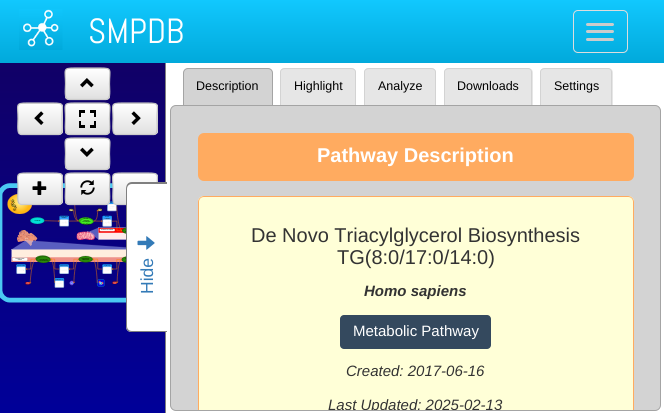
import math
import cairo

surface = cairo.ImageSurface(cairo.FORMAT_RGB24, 664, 413)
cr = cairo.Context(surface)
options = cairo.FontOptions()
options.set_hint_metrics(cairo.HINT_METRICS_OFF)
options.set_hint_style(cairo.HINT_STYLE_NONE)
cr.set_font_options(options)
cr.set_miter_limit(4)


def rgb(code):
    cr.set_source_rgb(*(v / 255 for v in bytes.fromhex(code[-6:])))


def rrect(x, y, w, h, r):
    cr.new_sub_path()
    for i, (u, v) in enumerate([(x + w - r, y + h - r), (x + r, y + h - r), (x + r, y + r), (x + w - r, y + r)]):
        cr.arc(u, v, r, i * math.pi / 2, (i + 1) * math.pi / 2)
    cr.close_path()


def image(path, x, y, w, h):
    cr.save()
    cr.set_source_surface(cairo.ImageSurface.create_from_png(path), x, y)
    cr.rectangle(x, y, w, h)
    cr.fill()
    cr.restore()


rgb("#ffffff")
cr.paint()
rgb("#808080")
cr.rectangle(165, 60, 1, 353)
cr.fill()
gradient = cairo.LinearGradient(333, 0, 333, 63)
gradient.add_color_stop_rgba(0, 0.067, 0.784, 0.996, 1)
gradient.add_color_stop_rgba(1, 0.004, 0.663, 0.859, 1)
cr.set_source(gradient)
cr.rectangle(0, 0, 664, 63)
cr.fill()
image("img/1.png", 19, 9, 44, 41)
rrect(573.5, 10.5, 54, 42, 4.5)
rgb("#dddddd")
cr.set_line_width(1)
cr.stroke()
rgb("#cccccc")
rrect(586, 23, 28, 3, 1.5)
cr.fill()
rrect(586, 30, 28, 3, 1.5)
cr.fill()
rrect(586, 38, 28, 3, 1.5)
cr.fill()
gradient = cairo.LinearGradient(333, 60, 333, 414)
gradient.add_color_stop_rgba(0, 0.067, 0, 0.4, 1)
gradient.add_color_stop_rgba(1, 0, 0, 0.6, 1)
cr.set_source(gradient)
cr.rectangle(0, 63, 165, 350)
cr.fill()
image("img/2.png", 0, 183, 126, 120)
rgb("#d9d9d9")
rrect(65, 68, 45, 32, 4)
cr.fill()
cr.save()
rrect(65, 68, 45, 32, 4)
cr.clip()
gradient = cairo.LinearGradient(88, 69, 88, 99)
gradient.add_color_stop_rgba(0, 1, 1, 1, 1)
gradient.add_color_stop_rgba(1, 0.878, 0.878, 0.878, 1)
cr.set_source(gradient)
cr.rectangle(65, 69, 45, 30)
cr.fill()
cr.restore()
cr.new_path()
cr.move_to(108.5, 98.5)
cr.line_to(106, 99.5)
cr.line_to(69, 99.5)
cr.line_to(66.5, 98.5)
rgb("#cccccc")
cr.set_line_width(1.2)
cr.stroke()
cr.new_path()
cr.move_to(66.5, 98.5)
cr.curve_to(64.5, 96.5, 65.5, 86.5, 65.5, 84)
cr.curve_to(65.5, 69.5, 62, 68, 75, 68)
cr.line_to(100, 68)
cr.curve_to(113, 68, 109.5, 69.5, 109.5, 84)
cr.curve_to(109.5, 86.5, 110.5, 96.5, 108.5, 98.5)
rgb("#c2c2c2")
cr.stroke()
image("img/3.png", 80, 78, 14, 10)
rgb("#d9d9d9")
rrect(18, 103, 45, 32, 4)
cr.fill()
cr.save()
rrect(18, 103, 45, 32, 4)
cr.clip()
gradient = cairo.LinearGradient(40, 104, 40, 134)
gradient.add_color_stop_rgba(0, 1, 1, 1, 1)
gradient.add_color_stop_rgba(1, 0.878, 0.878, 0.878, 1)
cr.set_source(gradient)
cr.rectangle(18, 104, 45, 30)
cr.fill()
cr.restore()
cr.new_path()
cr.move_to(61, 133.5)
cr.line_to(59, 134.5)
cr.line_to(21, 134.5)
cr.line_to(19, 133.5)
rgb("#cccccc")
cr.stroke()
cr.new_path()
cr.move_to(19, 133.5)
cr.curve_to(17, 131.5, 18, 121.5, 18, 119)
cr.curve_to(18, 104.5, 14.5, 103, 27.5, 103)
cr.line_to(52.5, 103)
cr.curve_to(65.5, 103, 62, 104.5, 62, 119)
cr.curve_to(62, 121.5, 63, 131.5, 61, 133.5)
rgb("#c2c2c2")
cr.stroke()
image("img/4.png", 34, 111, 10, 14)
rgb("#d9d9d9")
rrect(65, 103, 45, 32, 4)
cr.fill()
cr.save()
rrect(65, 103, 45, 32, 4)
cr.clip()
gradient = cairo.LinearGradient(88, 104, 88, 134)
gradient.add_color_stop_rgba(0, 1, 1, 1, 1)
gradient.add_color_stop_rgba(1, 0.878, 0.878, 0.878, 1)
cr.set_source(gradient)
cr.rectangle(65, 104, 45, 30)
cr.fill()
cr.restore()
cr.new_path()
cr.move_to(108.5, 133.5)
cr.line_to(106, 134.5)
cr.line_to(69, 134.5)
cr.line_to(66.5, 133.5)
rgb("#cccccc")
cr.stroke()
cr.new_path()
cr.move_to(66.5, 133.5)
cr.curve_to(64.5, 131.5, 65.5, 121.5, 65.5, 119)
cr.curve_to(65.5, 104.5, 62, 103, 75, 103)
cr.line_to(100, 103)
cr.curve_to(113, 103, 109.5, 104.5, 109.5, 119)
cr.curve_to(109.5, 121.5, 110.5, 131.5, 108.5, 133.5)
rgb("#c2c2c2")
cr.stroke()
image("img/5.png", 79, 110, 17, 18)
rgb("#d9d9d9")
rrect(113, 103, 45, 32, 4)
cr.fill()
cr.save()
rrect(113, 103, 45, 32, 4)
cr.clip()
gradient = cairo.LinearGradient(135, 104, 135, 134)
gradient.add_color_stop_rgba(0, 1, 1, 1, 1)
gradient.add_color_stop_rgba(1, 0.878, 0.878, 0.878, 1)
cr.set_source(gradient)
cr.rectangle(113, 104, 45, 30)
cr.fill()
cr.restore()
cr.new_path()
cr.move_to(156, 133.5)
cr.line_to(154, 134.5)
cr.line_to(116, 134.5)
cr.line_to(114, 133.5)
rgb("#cccccc")
cr.stroke()
cr.new_path()
cr.move_to(114, 133.5)
cr.curve_to(112, 131.5, 113, 121.5, 113, 119)
cr.curve_to(113, 104.5, 109.5, 103, 122.5, 103)
cr.line_to(147.5, 103)
cr.curve_to(160.5, 103, 157, 104.5, 157, 119)
cr.curve_to(157, 121.5, 158, 131.5, 156, 133.5)
rgb("#c2c2c2")
cr.stroke()
image("img/6.png", 131, 111, 10, 14)
rgb("#d9d9d9")
rrect(65, 138, 45, 32, 4)
cr.fill()
cr.save()
rrect(65, 138, 45, 32, 4)
cr.clip()
gradient = cairo.LinearGradient(88, 139, 88, 169)
gradient.add_color_stop_rgba(0, 1, 1, 1, 1)
gradient.add_color_stop_rgba(1, 0.878, 0.878, 0.878, 1)
cr.set_source(gradient)
cr.rectangle(65, 139, 45, 30)
cr.fill()
cr.restore()
cr.new_path()
cr.move_to(108.5, 168.5)
cr.line_to(106, 169.5)
cr.line_to(69, 169.5)
cr.line_to(66.5, 168.5)
rgb("#cccccc")
cr.stroke()
cr.new_path()
cr.move_to(66.5, 168.5)
cr.curve_to(64.5, 166.5, 65.5, 156.5, 65.5, 154)
cr.curve_to(65.5, 139.5, 62, 138, 75, 138)
cr.line_to(100, 138)
cr.curve_to(113, 138, 109.5, 139.5, 109.5, 154)
cr.curve_to(109.5, 156.5, 110.5, 166.5, 108.5, 168.5)
rgb("#c2c2c2")
cr.stroke()
image("img/7.png", 80, 147, 14, 10)
rgb("#d9d9d9")
rrect(18, 173, 45, 32, 4)
cr.fill()
cr.save()
rrect(18, 173, 45, 32, 4)
cr.clip()
gradient = cairo.LinearGradient(40, 174, 40, 204)
gradient.add_color_stop_rgba(0, 1, 1, 1, 1)
gradient.add_color_stop_rgba(1, 0.878, 0.878, 0.878, 1)
cr.set_source(gradient)
cr.rectangle(18, 174, 45, 30)
cr.fill()
cr.restore()
cr.new_path()
cr.move_to(61, 203.5)
cr.line_to(59, 204.5)
cr.line_to(21, 204.5)
cr.line_to(19, 203.5)
rgb("#cccccc")
cr.stroke()
cr.new_path()
cr.move_to(19, 203.5)
cr.curve_to(17, 201.5, 18, 191.5, 18, 189)
cr.curve_to(18, 174.5, 14.5, 173, 27.5, 173)
cr.line_to(52.5, 173)
cr.curve_to(65.5, 173, 62, 174.5, 62, 189)
cr.curve_to(62, 191.5, 63, 201.5, 61, 203.5)
rgb("#c2c2c2")
cr.stroke()
image("img/8.png", 32, 181, 15, 14)
rgb("#d9d9d9")
rrect(65, 173, 45, 32, 4)
cr.fill()
cr.save()
rrect(65, 173, 45, 32, 4)
cr.clip()
gradient = cairo.LinearGradient(88, 174, 88, 204)
gradient.add_color_stop_rgba(0, 1, 1, 1, 1)
gradient.add_color_stop_rgba(1, 0.878, 0.878, 0.878, 1)
cr.set_source(gradient)
cr.rectangle(65, 174, 45, 30)
cr.fill()
cr.restore()
cr.new_path()
cr.move_to(108.5, 203.5)
cr.line_to(106, 204.5)
cr.line_to(69, 204.5)
cr.line_to(66.5, 203.5)
rgb("#cccccc")
cr.stroke()
cr.new_path()
cr.move_to(66.5, 203.5)
cr.curve_to(64.5, 201.5, 65.5, 191.5, 65.5, 189)
cr.curve_to(65.5, 174.5, 62, 173, 75, 173)
cr.line_to(100, 173)
cr.curve_to(113, 173, 109.5, 174.5, 109.5, 189)
cr.curve_to(109.5, 191.5, 110.5, 201.5, 108.5, 203.5)
rgb("#c2c2c2")
cr.stroke()
image("img/9.png", 80, 180, 15, 15)
rgb("#d9d9d9")
rrect(113, 173, 45, 32, 4)
cr.fill()
cr.save()
rrect(113, 173, 45, 32, 4)
cr.clip()
gradient = cairo.LinearGradient(135, 174, 135, 204)
gradient.add_color_stop_rgba(0, 1, 1, 1, 1)
gradient.add_color_stop_rgba(1, 0.878, 0.878, 0.878, 1)
cr.set_source(gradient)
cr.rectangle(113, 174, 45, 30)
cr.fill()
cr.restore()
cr.new_path()
cr.move_to(156, 203.5)
cr.line_to(154, 204.5)
cr.line_to(116, 204.5)
cr.line_to(114, 203.5)
rgb("#cccccc")
cr.stroke()
cr.new_path()
cr.move_to(114, 203.5)
cr.curve_to(112, 201.5, 113, 191.5, 113, 189)
cr.curve_to(113, 174.5, 109.5, 173, 122.5, 173)
cr.line_to(147.5, 173)
cr.curve_to(160.5, 173, 157, 174.5, 157, 189)
cr.curve_to(157, 191.5, 158, 201.5, 156, 203.5)
rgb("#c2c2c2")
cr.stroke()
rgb("#d3d3d3")
rrect(170.5, 105.5, 490, 305, 5.5)
cr.fill_preserve()
rgb("#a4a4a4")
cr.set_line_width(1)
cr.stroke()
rgb("#d3d3d3")
cr.new_path()
cr.move_to(188, 68.5)
cr.line_to(268, 68.5)
cr.curve_to(270.5, 68.5, 272.5, 70.5, 272.5, 73)
cr.line_to(272.5, 105.5)
cr.line_to(183.5, 105.5)
cr.line_to(183.5, 73)
cr.curve_to(183.5, 70.5, 185.5, 68.5, 188, 68.5)
cr.close_path()
cr.fill_preserve()
rgb("#a4a4a4")
cr.stroke()
rgb("#e6e6e6")
cr.new_path()
cr.move_to(285, 68)
cr.line_to(351, 68)
cr.curve_to(354, 68, 356, 70, 356, 73)
cr.line_to(356, 105)
cr.line_to(280, 105)
cr.line_to(280, 73)
cr.curve_to(280, 70, 282, 68, 285, 68)
cr.close_path()
cr.fill()
rgb("#d3d3d3")
cr.set_fill_rule(cairo.FILL_RULE_EVEN_ODD)
cr.new_path()
cr.move_to(285, 68)
cr.line_to(351, 68)
cr.curve_to(354, 68, 356, 70, 356, 72)
cr.line_to(356, 105)
cr.line_to(280, 105)
cr.line_to(280, 72)
cr.curve_to(280, 70, 282, 68, 285, 68)
cr.close_path()
cr.move_to(285, 69)
cr.line_to(351, 69)
cr.curve_to(353, 69, 355, 70, 355, 72)
cr.line_to(355, 105)
cr.line_to(281, 105)
cr.line_to(281, 72)
cr.curve_to(281, 70, 283, 69, 285, 69)
cr.close_path()
cr.fill()
rgb("#e6e6e6")
cr.new_path()
cr.move_to(369, 68)
cr.line_to(431, 68)
cr.curve_to(434, 68, 436, 70, 436, 73)
cr.line_to(436, 105)
cr.line_to(364, 105)
cr.line_to(364, 73)
cr.curve_to(364, 70, 366, 68, 369, 68)
cr.close_path()
cr.fill()
rgb("#d3d3d3")
cr.new_path()
cr.move_to(369, 68)
cr.line_to(431, 68)
cr.curve_to(434, 68, 436, 70, 436, 72)
cr.line_to(436, 105)
cr.line_to(364, 105)
cr.line_to(364, 72)
cr.curve_to(364, 70, 366, 68, 369, 68)
cr.close_path()
cr.move_to(369, 69)
cr.line_to(431, 69)
cr.curve_to(433, 69, 435, 70, 435, 72)
cr.line_to(435, 105)
cr.line_to(365, 105)
cr.line_to(365, 72)
cr.curve_to(365, 70, 367, 69, 369, 69)
cr.close_path()
cr.fill()
rgb("#e6e6e6")
cr.new_path()
cr.move_to(449, 68)
cr.line_to(528, 68)
cr.curve_to(531, 68, 533, 70, 533, 73)
cr.line_to(533, 105)
cr.line_to(444, 105)
cr.line_to(444, 73)
cr.curve_to(444, 70, 446, 68, 449, 68)
cr.close_path()
cr.fill()
rgb("#d3d3d3")
cr.new_path()
cr.move_to(449, 68)
cr.line_to(528, 68)
cr.curve_to(530, 68, 532, 70, 532, 72)
cr.line_to(532, 105)
cr.line_to(444, 105)
cr.line_to(444, 72)
cr.curve_to(444, 70, 446, 68, 449, 68)
cr.close_path()
cr.move_to(449, 69)
cr.line_to(528, 69)
cr.curve_to(530, 69, 531, 70, 531, 72)
cr.line_to(531, 105)
cr.line_to(445, 105)
cr.line_to(445, 72)
cr.curve_to(445, 70, 447, 69, 449, 69)
cr.close_path()
cr.fill()
rgb("#e6e6e6")
cr.new_path()
cr.move_to(545, 68)
cr.line_to(608, 68)
cr.curve_to(611, 68, 613, 70, 613, 73)
cr.line_to(613, 105)
cr.line_to(540, 105)
cr.line_to(540, 73)
cr.curve_to(540, 70, 542, 68, 545, 68)
cr.close_path()
cr.fill()
rgb("#d3d3d3")
cr.new_path()
cr.move_to(545, 68)
cr.line_to(608, 68)
cr.curve_to(610, 68, 612, 70, 612, 72)
cr.line_to(612, 105)
cr.line_to(540, 105)
cr.line_to(540, 72)
cr.curve_to(540, 70, 542, 68, 545, 68)
cr.close_path()
cr.move_to(545, 69)
cr.line_to(608, 69)
cr.curve_to(610, 69, 611, 70, 611, 72)
cr.line_to(611, 105)
cr.line_to(541, 105)
cr.line_to(541, 72)
cr.curve_to(541, 70, 543, 69, 545, 69)
cr.close_path()
cr.fill()
rgb("#ffab60")
rrect(198, 133, 436, 48, 6)
cr.fill()
rgb("#ffffd7")
cr.new_path()
cr.move_to(204, 196)
cr.line_to(628, 196)
cr.curve_to(631.5, 196, 634, 198.5, 634, 202)
cr.line_to(634, 410)
cr.line_to(198, 410)
cr.line_to(198, 202)
cr.curve_to(198, 198.5, 200.5, 196, 204, 196)
cr.close_path()
cr.fill()
rgb("#ffab60")
cr.set_fill_rule(cairo.FILL_RULE_WINDING)
cr.new_path()
cr.move_to(204, 196)
cr.curve_to(201, 196, 198, 199, 198, 202)
cr.line_to(198, 410)
cr.line_to(199, 410)
cr.line_to(199, 202)
cr.curve_to(199, 199, 201, 197, 204, 197)
cr.line_to(628, 197)
cr.curve_to(631, 197, 633, 199, 633, 202)
cr.line_to(633, 410)
cr.line_to(634, 410)
cr.line_to(634, 202)
cr.curve_to(634, 199, 631, 196, 628, 196)
cr.close_path()
cr.fill()
rgb("#34495e")
rrect(340, 315, 151, 34, 4)
cr.fill()
rgb("#ffffff")
cr.new_path()
cr.move_to(126, 326)
cr.line_to(126, 189)
cr.curve_to(126, 185, 128, 182, 132, 182)
cr.line_to(167, 182)
cr.line_to(167, 332)
cr.line_to(132, 332)
cr.curve_to(128, 332, 126, 330, 126, 326)
cr.close_path()
cr.fill()
rgb("#808080")
cr.set_fill_rule(cairo.FILL_RULE_EVEN_ODD)
cr.new_path()
cr.move_to(126, 326)
cr.line_to(126, 189)
cr.curve_to(126, 185, 128, 182, 132, 182)
cr.line_to(167, 182)
cr.line_to(167, 332)
cr.line_to(132, 332)
cr.curve_to(128, 332, 126, 330, 126, 326)
cr.close_path()
cr.move_to(127, 326)
cr.line_to(127, 189)
cr.curve_to(127, 186, 129, 184, 132, 184)
cr.line_to(167, 184)
cr.line_to(167, 331)
cr.line_to(132, 331)
cr.curve_to(129, 331, 127, 329, 127, 326)
cr.close_path()
cr.fill()
image("img/10.png", 137, 236, 18, 14)
cr.select_font_face("Abel")
cr.set_font_size(35)
rgb("#ffffff")
cr.move_to(88, 43)
cr.show_text("SMPDB")
cr.select_font_face("Liberation Sans")
cr.set_font_size(12.5)
rgb("#000000")
for x, y, s in [
    (196, 90, "Description"),
    (294, 90, "Highlight"),
    (378, 90, "Analyze"),
    (457, 90, "Downloads"),
    (554, 90, "Settings"),
]:
    cr.move_to(x, y)
    cr.show_text(s)
cr.select_font_face("Liberation Sans", cairo.FONT_SLANT_NORMAL, cairo.FONT_WEIGHT_BOLD)
cr.set_font_size(20)
rgb("#ffffff")
cr.move_to(317, 162)
cr.show_text("Pathway Description")
cr.select_font_face("Liberation Sans")
rgb("#333333")
cr.move_to(251, 242)
cr.show_text("De Novo Triacylglycerol Biosynthesis")
cr.move_to(337, 264)
cr.show_text("TG(8:0/17:0/14:0)")
cr.select_font_face("Liberation Sans", cairo.FONT_SLANT_ITALIC, cairo.FONT_WEIGHT_BOLD)
cr.set_font_size(15)
cr.move_to(364, 296)
cr.show_text("Homo sapiens")
cr.select_font_face("Liberation Sans")
rgb("#ffffff")
cr.move_to(353, 336)
cr.show_text("Metabolic Pathway")
cr.select_font_face("Liberation Sans", cairo.FONT_SLANT_ITALIC)
rgb("#333333")
cr.move_to(346, 376)
cr.show_text("Created: 2017-06-16")
cr.save()
cr.set_fill_rule(cairo.FILL_RULE_WINDING)
rrect(171, 106, 489, 304, 5)
cr.clip()
cr.move_to(328, 410)
cr.show_text("Last Updated: 2025-02-13")
cr.restore()
cr.select_font_face("Liberation Sans")
cr.set_font_size(17.5)
rgb("#337ab7")
cr.save()
cr.translate(153, 294)
cr.rotate(-90 * math.pi / 180)
cr.move_to(0, 0)
cr.show_text("Hide")
cr.restore()
surface.write_to_png("page.png")
